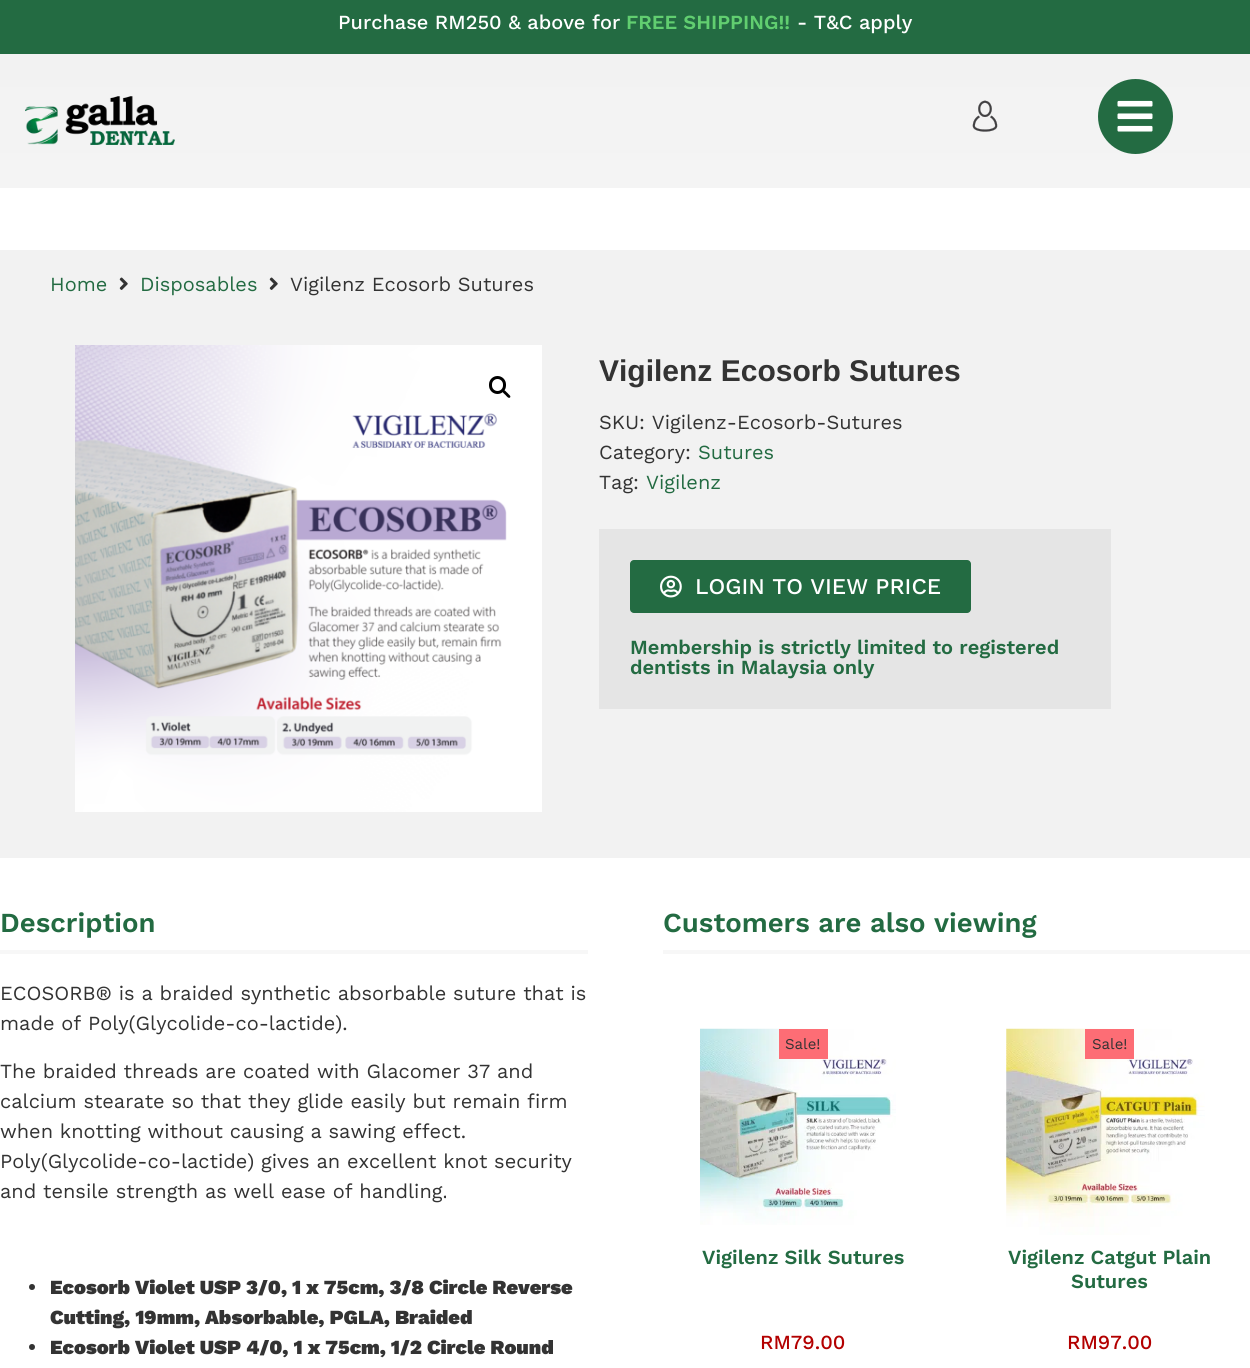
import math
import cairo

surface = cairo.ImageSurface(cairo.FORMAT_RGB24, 1250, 1368)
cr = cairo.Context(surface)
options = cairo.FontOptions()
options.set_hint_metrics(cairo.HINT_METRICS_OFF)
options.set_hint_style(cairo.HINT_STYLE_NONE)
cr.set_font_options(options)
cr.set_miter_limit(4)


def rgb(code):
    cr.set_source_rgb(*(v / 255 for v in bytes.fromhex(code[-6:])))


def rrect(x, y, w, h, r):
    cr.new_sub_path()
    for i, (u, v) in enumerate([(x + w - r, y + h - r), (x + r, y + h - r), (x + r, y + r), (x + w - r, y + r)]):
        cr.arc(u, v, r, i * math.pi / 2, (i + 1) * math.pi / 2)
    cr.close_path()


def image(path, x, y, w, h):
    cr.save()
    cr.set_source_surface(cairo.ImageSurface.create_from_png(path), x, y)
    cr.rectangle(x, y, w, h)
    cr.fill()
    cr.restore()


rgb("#ffffff")
cr.paint()
rgb("#236b42")
cr.rectangle(0, 0, 1250, 54)
cr.fill()
gradient = cairo.LinearGradient(625, 54, 625, 188)
gradient.add_color_stop_rgba(0, 0.949, 0.949, 0.949, 1)
gradient.add_color_stop_rgba(1, 0.957, 0.957, 0.957, 1)
cr.set_source(gradient)
cr.rectangle(0, 54, 1250, 134)
cr.fill()
image("img/1.png", 25, 96, 150, 49)
image("img/2.png", 972, 100, 26, 32)
rgb("#236b42")
cr.arc(1135.5, 116.5, 37.5, 0, 2 * math.pi)
cr.fill()
image("img/3.png", 1117, 100, 36, 32)
rgb("#f2f2f2")
cr.rectangle(0, 250, 1250, 608)
cr.fill()
image("img/4.png", 119, 277, 9, 13)
image("img/4.png", 269, 277, 9, 13)
image("img/5.png", 75, 345, 467, 467)
rrect(490.5, 377.5, 14, 15, 7)
rgb("#000000")
cr.set_line_width(3)
cr.stroke()
cr.new_path()
cr.move_to(503, 390.5)
cr.curve_to(504.5, 389, 506.5, 392.5, 507.5, 393)
cr.curve_to(508, 394, 511.5, 396, 510, 397.5)
cr.curve_to(508.5, 399, 506, 395.5, 505.5, 395)
cr.curve_to(504.5, 394, 501.5, 392, 503, 390.5)
cr.close_path()
cr.fill()
rgb("#e5e5e5")
cr.rectangle(599, 529, 512, 180)
cr.fill()
rgb("#236b42")
rrect(630, 560, 341, 53, 4)
cr.fill()
image("img/6.png", 660, 575, 22, 23)
rgb("#f7f7f7")
cr.rectangle(0, 950, 588, 4)
cr.fill()
rgb("#333333")
cr.arc(32, 1287, 3, 0, 2 * math.pi)
cr.fill()
cr.arc(32, 1347, 3, 0, 2 * math.pi)
cr.fill()
rgb("#f7f7f7")
cr.rectangle(663, 950, 587, 4)
cr.fill()
image("img/7.png", 700, 1028, 196, 197)
rgb("#fd6d75")
cr.rectangle(779, 1029, 49, 30)
cr.fill()
image("img/8.png", 1006, 1028, 199, 207)
cr.rectangle(1085, 1029, 49, 30)
cr.fill()
cr.select_font_face("Work Sans Medium")
cr.set_font_size(20)
rgb("#ffffff")
cr.move_to(338, 29)
cr.show_text("Purchase RM250 & above for")
cr.select_font_face("Work Sans SemiBold")
rgb("#61ce70")
cr.move_to(626, 29)
cr.show_text("FREE SHIPPING!!")
cr.select_font_face("Work Sans Medium")
rgb("#ffffff")
cr.move_to(797, 29)
cr.show_text("- T&C apply")
cr.select_font_face("Work Sans")
rgb("#236b42")
cr.move_to(50, 291)
cr.show_text("Home")
cr.move_to(140, 291)
cr.show_text("Disposables")
rgb("#333333")
cr.move_to(290, 291)
cr.show_text("Vigilenz Ecosorb Sutures")
cr.select_font_face("Liberation Sans", cairo.FONT_SLANT_NORMAL, cairo.FONT_WEIGHT_BOLD)
cr.set_font_size(30)
cr.move_to(599, 381)
cr.show_text("Vigilenz Ecosorb Sutures")
cr.select_font_face("Work Sans")
cr.set_font_size(20)
cr.move_to(599, 429)
cr.show_text("SKU: Vigilenz-Ecosorb-Sutures")
cr.move_to(599, 459)
cr.show_text("Category:")
rgb("#236b42")
cr.move_to(698, 459)
cr.show_text("Sutures")
rgb("#333333")
cr.move_to(599, 489)
cr.show_text("Tag:")
rgb("#236b42")
cr.move_to(646, 489)
cr.show_text("Vigilenz")
cr.select_font_face("Work Sans Medium")
cr.set_font_size(22.5)
rgb("#ffffff")
cr.move_to(695, 594)
cr.show_text("LOGIN TO VIEW PRICE")
cr.select_font_face("Work Sans SemiBold")
cr.set_font_size(20)
rgb("#236b42")
cr.move_to(630, 654)
cr.show_text("Membership is strictly limited to registered")
cr.move_to(630, 674)
cr.show_text("dentists in Malaysia only")
cr.set_font_size(27.5)
cr.move_to(0, 932)
cr.show_text("Description")
cr.select_font_face("Work Sans")
cr.set_font_size(20)
rgb("#333333")
for x, y, s in [
    (0, 1000, "ECOSORB® is a braided synthetic absorbable suture that is"),
    (0, 1030, "made of Poly(Glycolide-co-lactide)."),
    (0, 1078, "The braided threads are coated with Glacomer 37 and"),
    (0, 1108, "calcium stearate so that they glide easily but remain firm"),
    (0, 1138, "when knotting without causing a sawing effect."),
    (0, 1168, "Poly(Glycolide-co-lactide) gives an excellent knot security"),
    (0, 1198, "and tensile strength as well ease of handling."),
]:
    cr.move_to(x, y)
    cr.show_text(s)
cr.select_font_face("Work Sans Black")
for x, y, s in [
    (50, 1294, "Ecosorb Violet USP 3/0, 1 x 75cm, 3/8 Circle Reverse"),
    (50, 1324, "Cutting, 19mm, Absorbable, PGLA, Braided"),
    (50, 1354, "Ecosorb Violet USP 4/0, 1 x 75cm, 1/2 Circle Round"),
]:
    cr.move_to(x, y)
    cr.show_text(s)
cr.select_font_face("Work Sans SemiBold")
cr.set_font_size(27.5)
rgb("#236b42")
cr.move_to(663, 932)
cr.show_text("Customers are also viewing")
cr.select_font_face("Work Sans")
cr.set_font_size(15)
rgb("#333333")
cr.move_to(785, 1049)
cr.show_text("Sale!")
cr.select_font_face("Work Sans SemiBold")
cr.set_font_size(20)
rgb("#236b42")
cr.move_to(702, 1264)
cr.show_text("Vigilenz Silk Sutures")
cr.select_font_face("Work Sans Medium")
rgb("#b30000")
cr.move_to(760, 1349)
cr.show_text("RM79.00")
cr.select_font_face("Work Sans")
cr.set_font_size(15)
rgb("#333333")
cr.move_to(1092, 1049)
cr.show_text("Sale!")
cr.select_font_face("Work Sans SemiBold")
cr.set_font_size(20)
rgb("#236b42")
cr.move_to(1008, 1264)
cr.show_text("Vigilenz Catgut Plain")
cr.move_to(1071, 1288)
cr.show_text("Sutures")
cr.select_font_face("Work Sans Medium")
rgb("#b30000")
cr.move_to(1067, 1349)
cr.show_text("RM97.00")
surface.write_to_png("page.png")
